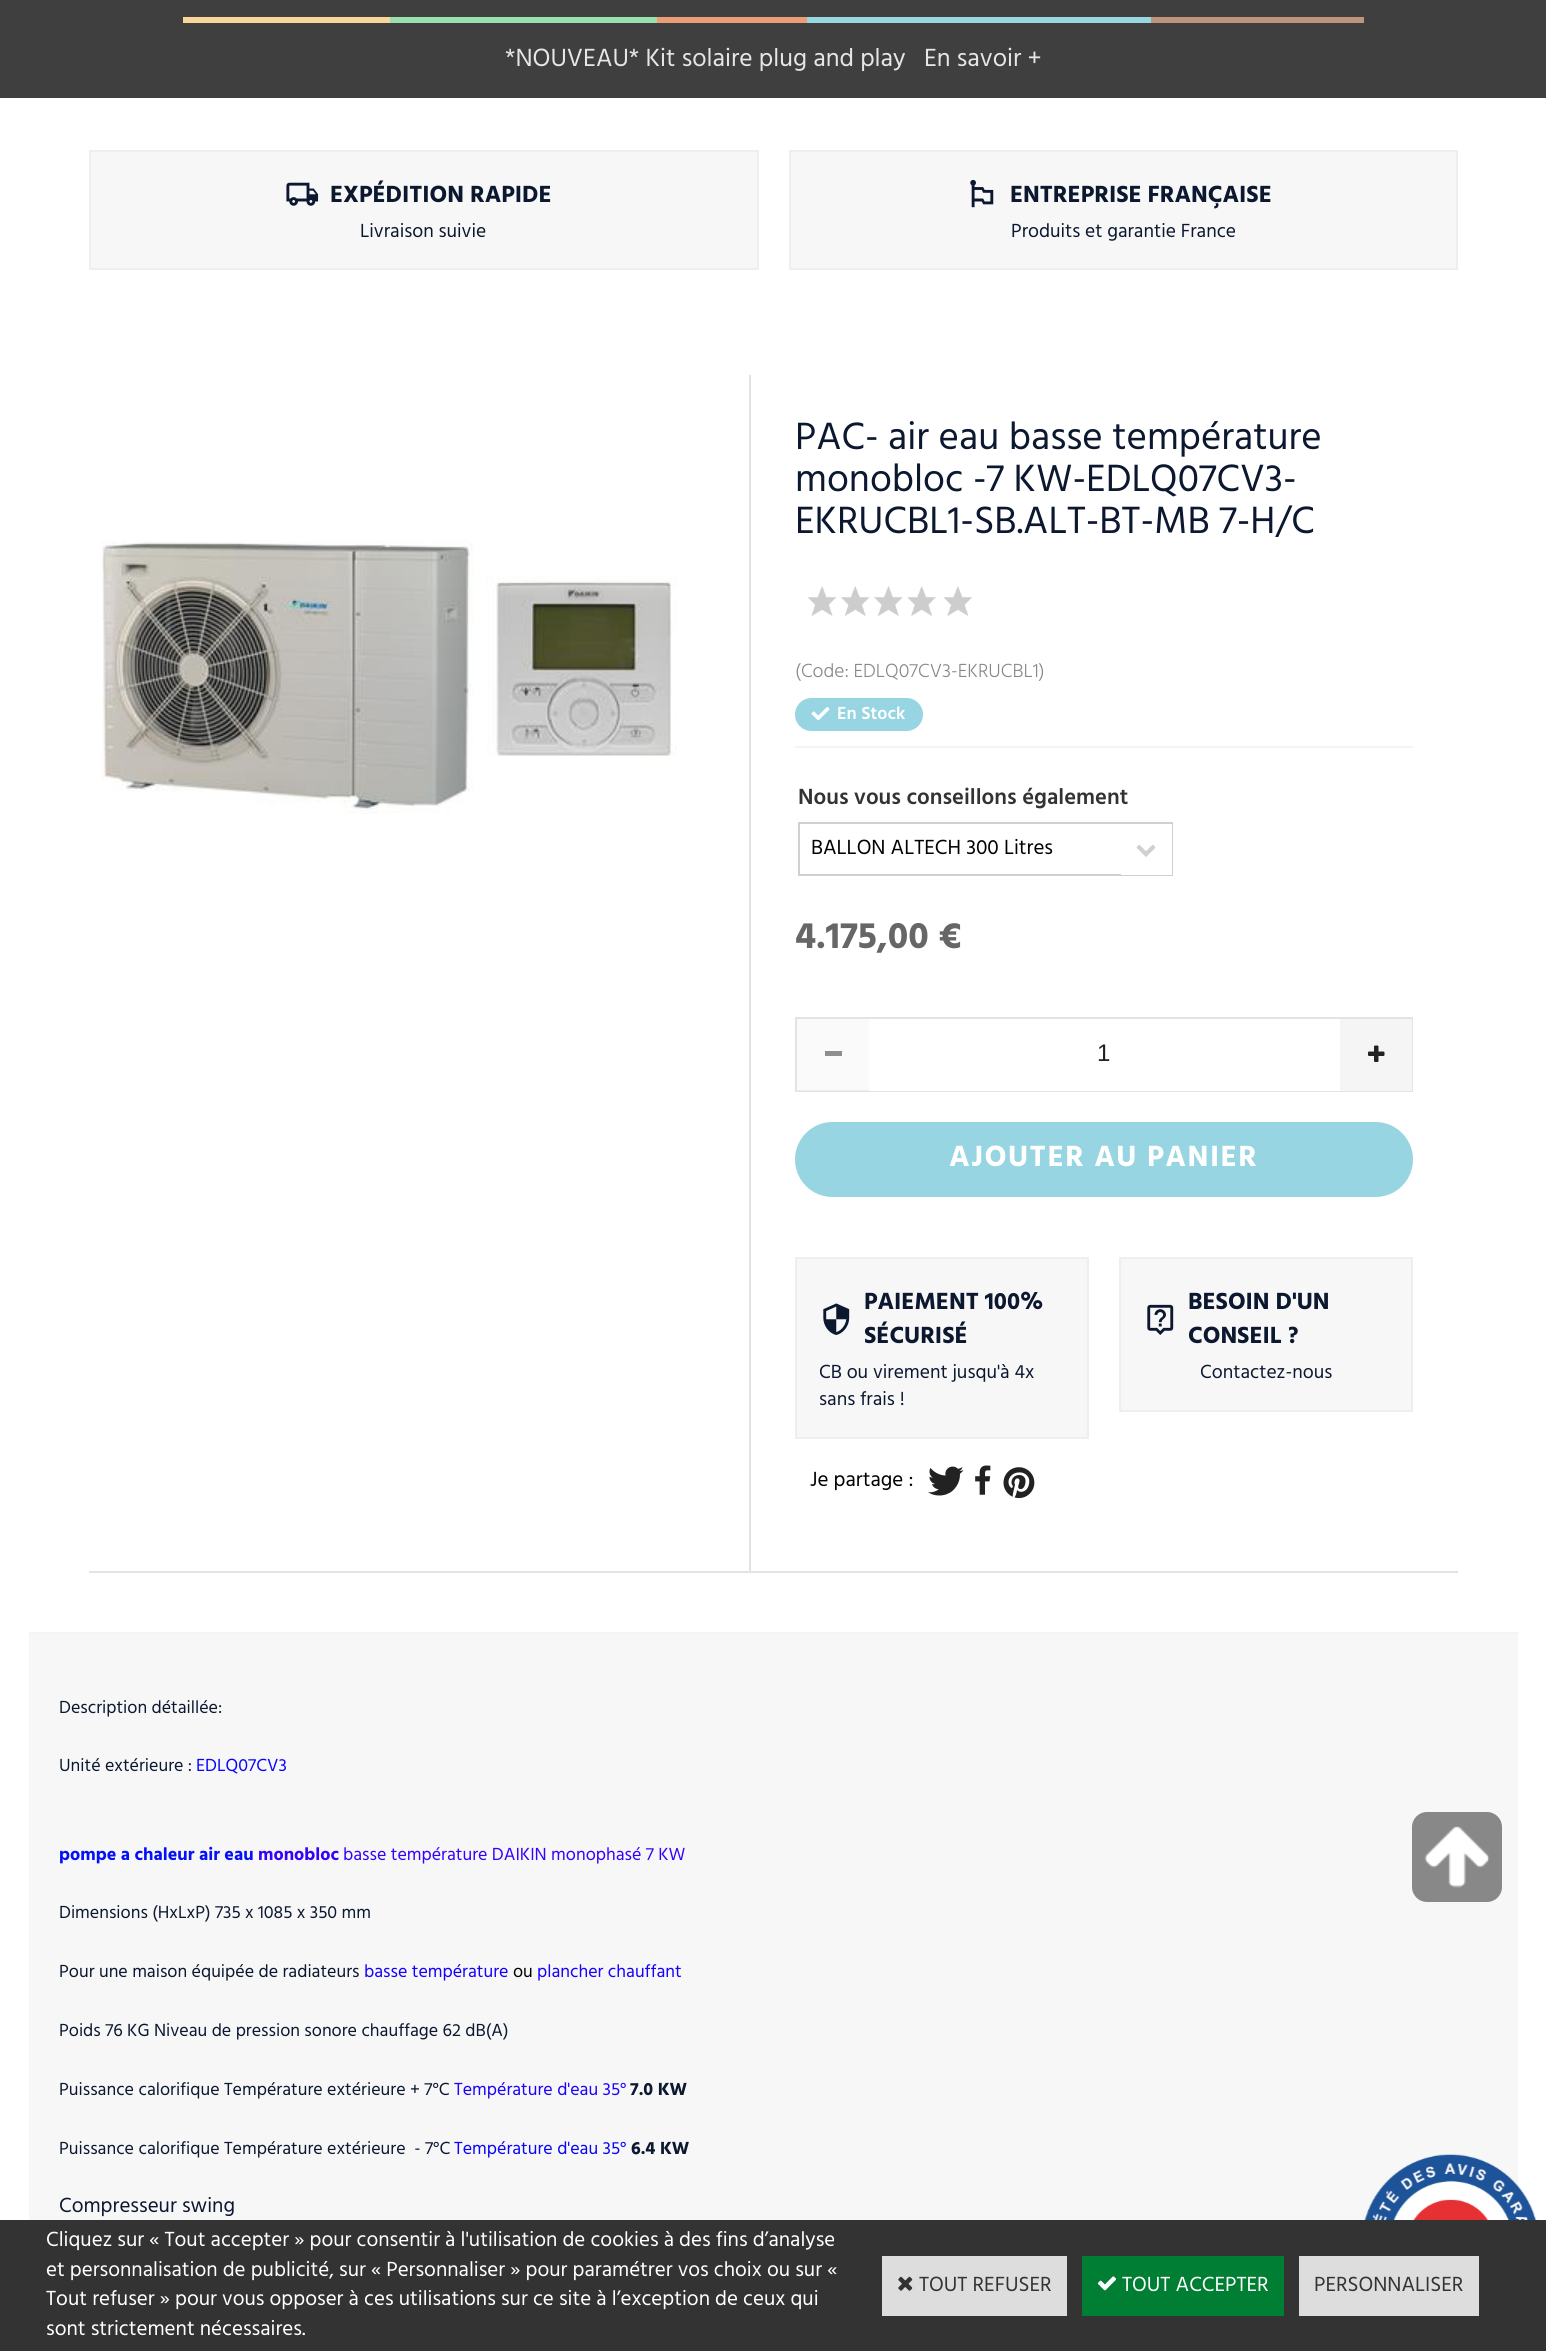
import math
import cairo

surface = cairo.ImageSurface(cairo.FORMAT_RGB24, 1546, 2351)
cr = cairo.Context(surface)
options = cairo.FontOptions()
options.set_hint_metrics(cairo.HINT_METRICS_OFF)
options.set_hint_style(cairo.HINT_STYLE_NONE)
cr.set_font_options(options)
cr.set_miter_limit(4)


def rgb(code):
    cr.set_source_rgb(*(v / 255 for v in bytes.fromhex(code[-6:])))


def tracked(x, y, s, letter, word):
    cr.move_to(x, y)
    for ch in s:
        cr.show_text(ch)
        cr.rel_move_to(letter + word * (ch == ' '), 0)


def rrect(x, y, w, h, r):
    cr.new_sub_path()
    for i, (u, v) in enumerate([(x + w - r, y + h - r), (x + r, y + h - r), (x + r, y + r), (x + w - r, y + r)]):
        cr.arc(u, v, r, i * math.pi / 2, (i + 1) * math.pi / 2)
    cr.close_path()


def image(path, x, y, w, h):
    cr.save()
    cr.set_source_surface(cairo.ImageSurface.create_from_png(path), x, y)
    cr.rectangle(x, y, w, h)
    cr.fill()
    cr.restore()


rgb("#ffffff")
cr.paint()
for x, y, w, h, color in [
    (0, 0, 1546, 98, "#3f3f3f"),
    (183, 17, 207, 6, "#f8d598"),
    (390, 17, 267, 6, "#9adfaf"),
    (657, 17, 150, 6, "#eb9d75"),
    (807, 17, 344, 6, "#97d7e1"),
    (1151, 17, 213, 6, "#be957c"),
]:
    rgb(color)
    cr.rectangle(x, y, w, h)
    cr.fill()
rgb("#f7f7f7")
cr.rectangle(90, 151, 668, 118)
cr.fill_preserve()
rgb("#eeeeee")
cr.stroke()
image("img/1.png", 286, 182, 33, 24)
rgb("#f7f7f7")
cr.rectangle(790, 151, 667, 118)
cr.fill_preserve()
rgb("#eeeeee")
cr.stroke()
image("img/2.png", 970, 179, 24, 29)
rgb("#e4e2e2")
cr.rectangle(89, 1571, 1369, 2)
cr.fill()
image("img/3.png", 101, 540, 576, 274)
cr.rectangle(749, 375, 2, 1196)
cr.fill()
image("img/4.png", 807, 586, 165, 30)
rgb("#f4f4f4")
cr.rectangle(795, 746, 618, 2)
cr.fill()
rgb("#97d5e2")
rrect(795, 698, 128, 33, 16.5)
cr.fill()
image("img/5.png", 811, 707, 19, 14)
cr.rectangle(799, 823, 373, 52)
rgb("#d0d0d0")
cr.stroke()
rgb("#ffffff")
cr.rectangle(1121, 824, 51, 51)
cr.fill()
image("img/6.png", 1136, 844, 20, 13)
cr.rectangle(796, 1018, 616, 73)
rgb("#e3e3e3")
cr.stroke()
cr.set_source_rgba(0.961, 0.961, 0.961, 0.5)
cr.rectangle(797, 1019, 72, 72)
cr.fill()
rgb("#8e8e8e")
cr.rectangle(825, 1051, 17, 5)
cr.fill()
rgb("#ffffff")
cr.rectangle(869, 1090, 471, 1)
cr.fill()
rgb("#f5f5f5")
cr.rectangle(1340, 1019, 72, 72)
cr.fill()
image("img/7.png", 1368, 1045, 17, 17)
rgb("#97d5e2")
rrect(795, 1122, 618, 75, 37.5)
cr.fill()
rgb("#f7f7f7")
cr.rectangle(796, 1258, 292, 180)
cr.fill_preserve()
rgb("#eeeeee")
cr.stroke()
image("img/8.png", 823, 1303, 27, 32)
rgb("#f7f7f7")
cr.rectangle(1120, 1258, 292, 153)
cr.fill_preserve()
rgb("#eeeeee")
cr.stroke()
image("img/9.png", 1147, 1304, 27, 31)
image("img/10.png", 928, 1466, 36, 30)
image("img/11.png", 975, 1465, 16, 30)
image("img/12.png", 1003, 1467, 32, 32)
rgb("#f7f7f7")
cr.rectangle(29, 1634, 1489, 586)
cr.fill()
rgb("#f4f4f4")
cr.rectangle(29, 1632, 1489, 2)
cr.fill()
rgb("#888888")
rrect(1412, 1812, 90, 90, 15)
cr.fill()
image("img/13.png", 1424, 1826, 66, 62)
rgb("#333333")
cr.rectangle(0, 2220, 1546, 131)
cr.fill()
rgb("#dddddd")
cr.rectangle(882, 2256, 185, 60)
cr.fill()
image("img/14.png", 898, 2276, 15, 15)
rgb("#007e33")
cr.rectangle(1082, 2256, 202, 60)
cr.fill()
image("img/15.png", 1097, 2276, 20, 15)
rgb("#dddddd")
cr.rectangle(1299, 2256, 180, 60)
cr.fill()
image("img/16.png", 1364, 2154, 173, 66)
cr.select_font_face("Hind")
cr.set_font_size(25.5)
rgb("#e6e6e6")
cr.move_to(505, 66)
cr.show_text("*NOUVEAU* Kit solaire plug and play")
cr.move_to(924, 66)
cr.show_text("En savoir +")
cr.select_font_face("Hind", cairo.FONT_SLANT_NORMAL, cairo.FONT_WEIGHT_BOLD)
cr.set_font_size(24)
rgb("#0c1830")
cr.move_to(330, 202)
cr.show_text("EXPÉDITION RAPIDE")
cr.select_font_face("Hind")
cr.set_font_size(19.5)
cr.move_to(360, 237)
cr.show_text("Livraison suivie")
cr.select_font_face("Hind", cairo.FONT_SLANT_NORMAL, cairo.FONT_WEIGHT_BOLD)
cr.set_font_size(24)
cr.move_to(1010, 202)
cr.show_text("ENTREPRISE FRANÇAISE")
cr.select_font_face("Hind")
cr.set_font_size(19.5)
cr.move_to(1011, 237)
cr.show_text("Produits et garantie France")
cr.set_font_size(39)
for x, y, s in [
    (795, 449, "PAC- air eau basse température"),
    (795, 491, "monobloc -7 KW-EDLQ07CV3-"),
    (795, 533, "EKRUCBL1-SB.ALT-BT-MB 7-H/C"),
]:
    cr.move_to(x, y)
    cr.show_text(s)
cr.select_font_face("Hind Light")
cr.set_font_size(19.5)
rgb("#888888")
cr.move_to(795, 677)
cr.show_text("(Code: EDLQ07CV3-EKRUCBL1)")
cr.select_font_face("Hind SemiBold")
cr.set_font_size(18)
rgb("#ffffff")
cr.move_to(837, 719)
cr.show_text("En Stock")
cr.set_font_size(22.5)
rgb("#333333")
cr.move_to(798, 804)
cr.show_text("Nous vous conseillons également")
cr.select_font_face("Hind")
cr.set_font_size(21)
rgb("#000000")
cr.move_to(811, 854)
cr.show_text("BALLON ALTECH 300 Litres")
cr.select_font_face("Hind", cairo.FONT_SLANT_NORMAL, cairo.FONT_WEIGHT_BOLD)
cr.set_font_size(37.5)
rgb("#666666")
cr.move_to(795, 948)
cr.show_text("4.175,00 €")
cr.select_font_face("Liberation Sans")
cr.set_font_size(24)
rgb("#212121")
cr.move_to(1097, 1061)
cr.show_text("1")
cr.select_font_face("Hind", cairo.FONT_SLANT_NORMAL, cairo.FONT_WEIGHT_BOLD)
cr.set_font_size(30)
rgb("#ffffff")
tracked(949, 1166, "AJOUTER AU PANIER", 1.5, 0)
cr.set_font_size(24)
rgb("#0c1830")
cr.move_to(864, 1309)
cr.show_text("PAIEMENT 100%")
cr.move_to(864, 1343)
cr.show_text("SÉCURISÉ")
cr.select_font_face("Hind")
cr.set_font_size(19.5)
cr.move_to(819, 1378)
cr.show_text("CB ou virement jusqu'à 4x")
cr.move_to(819, 1405)
cr.show_text("sans frais !")
cr.select_font_face("Hind", cairo.FONT_SLANT_NORMAL, cairo.FONT_WEIGHT_BOLD)
cr.set_font_size(24)
cr.move_to(1188, 1309)
cr.show_text("BESOIN D'UN")
cr.move_to(1188, 1343)
cr.show_text("CONSEIL ?")
cr.select_font_face("Hind")
cr.set_font_size(19.5)
cr.move_to(1200, 1378)
cr.show_text("Contactez-nous")
cr.set_font_size(21)
rgb("#000000")
cr.move_to(810, 1486)
cr.show_text("Je partage :")
cr.set_font_size(18)
rgb("#0c1830")
cr.move_to(59, 1713)
cr.show_text("Description détaillée:")
cr.move_to(59, 1771)
cr.show_text("Unité extérieure :")
rgb("#0a05f9")
cr.move_to(196, 1771)
cr.show_text("EDLQ07CV3")
cr.select_font_face("Hind", cairo.FONT_SLANT_NORMAL, cairo.FONT_WEIGHT_BOLD)
rgb("#050ff9")
cr.move_to(59, 1860)
cr.show_text("pompe a chaleur air eau")
rgb("#3402fc")
cr.move_to(258, 1860)
cr.show_text("monobloc")
cr.select_font_face("Hind")
cr.move_to(343, 1860)
cr.show_text("basse température DAIKIN monophasé 7 KW")
rgb("#0c1830")
cr.move_to(59, 1918)
cr.show_text("Dimensions (HxLxP) 735 x 1085 x 350 mm")
cr.move_to(59, 1977)
cr.show_text("Pour une maison équipée de radiateurs")
rgb("#1501fd")
cr.move_to(364, 1977)
cr.show_text("basse température")
rgb("#000000")
cr.move_to(513, 1977)
cr.show_text("ou")
rgb("#1501fd")
cr.move_to(537, 1977)
cr.show_text("plancher chauffant")
rgb("#0c1830")
cr.move_to(59, 2036)
cr.show_text("Poids 76 KG Niveau de pression sonore chauffage 62 dB(A)")
cr.move_to(59, 2095)
cr.show_text("Puissance calorifique Température extérieure + 7°C")
rgb("#1c03fb")
cr.move_to(454, 2095)
cr.show_text("Température d'eau 35°")
cr.select_font_face("Hind", cairo.FONT_SLANT_NORMAL, cairo.FONT_WEIGHT_BOLD)
rgb("#0c1830")
cr.move_to(630, 2095)
cr.show_text("7.0 KW")
cr.select_font_face("Hind")
cr.move_to(59, 2154)
cr.show_text("Puissance calorifique Température extérieure  - 7°C")
rgb("#0a05f9")
cr.move_to(454, 2154)
cr.show_text("Température d'eau 35°")
cr.select_font_face("Hind", cairo.FONT_SLANT_NORMAL, cairo.FONT_WEIGHT_BOLD)
rgb("#0c1830")
cr.move_to(631, 2154)
cr.show_text("6.4 KW")
cr.select_font_face("Hind")
cr.set_font_size(21)
cr.move_to(59, 2212)
cr.show_text("Compresseur swing")
rgb("#ffffff")
for x, y, s in [
    (46, 2246, "Cliquez sur « Tout accepter » pour consentir à l'utilisation de cookies à des fins d’analyse"),
    (46, 2276, "et personnalisation de publicité, sur « Personnaliser » pour paramétrer vos choix ou sur «"),
    (46, 2305, "Tout refuser » pour vous opposer à ces utilisations sur ce site à l’exception de ceux qui"),
    (46, 2335, "sont strictement nécessaires."),
]:
    cr.move_to(x, y)
    cr.show_text(s)
rgb("#333333")
cr.move_to(919, 2291)
cr.show_text("TOUT REFUSER")
rgb("#ffffff")
cr.move_to(1122, 2291)
cr.show_text("TOUT ACCEPTER")
rgb("#333333")
cr.move_to(1314, 2291)
cr.show_text("PERSONNALISER")
surface.write_to_png("page.png")
